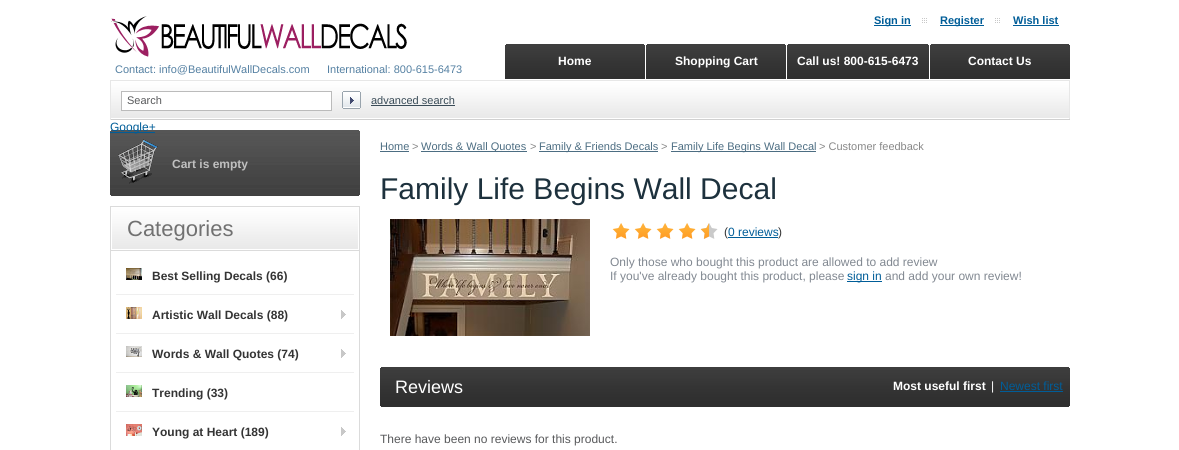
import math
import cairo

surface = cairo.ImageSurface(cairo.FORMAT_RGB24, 1179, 450)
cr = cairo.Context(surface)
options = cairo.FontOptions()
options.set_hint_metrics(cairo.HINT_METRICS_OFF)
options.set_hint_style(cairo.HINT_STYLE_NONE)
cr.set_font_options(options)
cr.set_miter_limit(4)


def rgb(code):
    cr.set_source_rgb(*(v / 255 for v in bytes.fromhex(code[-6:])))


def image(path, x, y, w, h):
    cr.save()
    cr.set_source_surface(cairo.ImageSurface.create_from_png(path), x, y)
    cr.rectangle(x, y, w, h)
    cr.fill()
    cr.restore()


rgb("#ffffff")
cr.paint()
image("img/1.png", 111, 16, 296, 41)
rgb("#005d98")
cr.rectangle(874, 25, 37, 1)
cr.fill()
image("img/2.png", 922, 18, 5, 5)
cr.rectangle(940, 25, 44, 1)
cr.fill()
image("img/2.png", 995, 18, 5, 5)
cr.rectangle(1013, 25, 46, 1)
cr.fill()
image("img/3.png", 505, 44, 140, 35)
rgb("#ffffff")
cr.rectangle(505, 44, 1, 1)
cr.fill()
cr.rectangle(644, 44, 1, 1)
cr.fill()
image("img/3.png", 646, 44, 140, 35)
cr.rectangle(646, 44, 1, 1)
cr.fill()
cr.rectangle(785, 44, 1, 1)
cr.fill()
image("img/4.png", 787, 44, 142, 35)
cr.rectangle(787, 44, 1, 1)
cr.fill()
cr.rectangle(928, 44, 1, 1)
cr.fill()
image("img/3.png", 930, 44, 140, 35)
cr.rectangle(930, 44, 1, 1)
cr.fill()
cr.rectangle(1069, 44, 1, 1)
cr.fill()
image("img/5.png", 111, 81, 958, 37)
for x, y, w, h, color in [
    (110, 80, 960, 1, "#e7e7e7"),
    (1069, 80, 1, 40, "#e7e7e7"),
    (110, 119, 960, 1, "#d0d0d0"),
    (110, 80, 1, 40, "#e7e7e7"),
]:
    rgb(color)
    cr.rectangle(x, y, w, h)
    cr.fill()
rgb("#ffffff")
cr.rectangle(121.5, 91.5, 210, 19)
cr.fill_preserve()
rgb("#bbbbbb")
cr.set_line_width(1)
cr.stroke()
image("img/6.png", 342, 91, 19, 18)
rgb("#394b57")
cr.rectangle(371, 105, 84, 1)
cr.fill()
image("img/7.png", 110, 130, 250, 66)
for x, y, w, h, color in [
    (110, 132, 45, 1, "#005d98"),
    (110, 130, 1, 1, "#ffffff"),
    (359, 130, 1, 1, "#ffffff"),
]:
    rgb(color)
    cr.rectangle(x, y, w, h)
    cr.fill()
image("img/8.png", 118, 139, 40, 45)
cr.rectangle(110, 195, 1, 1)
cr.fill()
cr.rectangle(359, 195, 1, 1)
cr.fill()
cr.rectangle(110.5, 206.5, 249, 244)
rgb("#dbdbdb")
cr.stroke()
image("img/9.png", 112, 208, 246, 41)
cr.rectangle(111, 250, 248, 1)
cr.fill()
rgb("#efefef")
cr.rectangle(116, 294, 238, 1)
cr.fill()
image("img/10.png", 126, 268, 16, 12)
cr.rectangle(116, 333, 238, 1)
cr.fill()
image("img/11.png", 341, 310, 5, 9)
image("img/12.png", 126, 307, 16, 12)
cr.rectangle(116, 372, 238, 1)
cr.fill()
image("img/11.png", 341, 349, 5, 9)
image("img/13.png", 126, 346, 16, 11)
cr.rectangle(116, 411, 238, 1)
cr.fill()
image("img/14.png", 126, 385, 16, 12)
image("img/11.png", 341, 427, 5, 9)
image("img/15.png", 126, 424, 16, 12)
for x, y, w, h, color in [
    (380, 151, 29, 1, "#4c6d82"),
    (421, 151, 106, 1, "#4c6d82"),
    (539, 151, 119, 1, "#4c6d82"),
    (671, 151, 145, 1, "#4c6d82"),
]:
    rgb(color)
    cr.rectangle(x, y, w, h)
    cr.fill()
image("img/16.png", 390, 219, 200, 117)
image("img/17.png", 612, 223, 18, 16)
image("img/17.png", 634, 223, 18, 16)
image("img/17.png", 656, 223, 18, 16)
image("img/17.png", 678, 223, 18, 16)
image("img/18.png", 701, 223, 17, 16)
image("img/19.png", 700, 223, 9, 16)
rgb("#005d98")
cr.rectangle(728, 237, 50, 1)
cr.fill()
cr.rectangle(847, 281, 35, 1)
cr.fill()
image("img/20.png", 380, 367, 690, 40)
for x, y, w, h, color in [
    (380, 367, 1, 1, "#ffffff"),
    (1069, 367, 1, 1, "#ffffff"),
    (1000, 391, 63, 1, "#005d98"),
    (380, 406, 1, 1, "#ffffff"),
    (1069, 406, 1, 1, "#ffffff"),
]:
    rgb(color)
    cr.rectangle(x, y, w, h)
    cr.fill()
cr.select_font_face("Liberation Sans", cairo.FONT_SLANT_NORMAL, cairo.FONT_WEIGHT_BOLD)
cr.set_font_size(11)
rgb("#005d98")
for x, y, s in [
    (874, 24, "Sign in"),
    (940, 24, "Register"),
    (1013, 24, "Wish list"),
]:
    cr.move_to(x, y)
    cr.show_text(s)
cr.set_font_size(12)
rgb("#ffffff")
for x, y, s in [
    (558, 65, "Home"),
    (675, 65, "Shopping Cart"),
    (797, 65, "Call us! 800-615-6473"),
    (968, 65, "Contact Us"),
]:
    cr.move_to(x, y)
    cr.show_text(s)
cr.select_font_face("Liberation Sans")
cr.set_font_size(11)
rgb("#5480a2")
cr.move_to(115, 73)
cr.show_text("Contact: info@BeautifulWallDecals.com")
cr.move_to(327, 73)
cr.show_text("International: 800-615-6473")
rgb("#58595b")
cr.move_to(127, 104)
cr.show_text("Search")
rgb("#394b57")
cr.move_to(371, 104)
cr.show_text("advanced search")
cr.set_font_size(12)
rgb("#005d98")
cr.move_to(110, 131)
cr.show_text("Google+")
cr.select_font_face("Liberation Sans", cairo.FONT_SLANT_NORMAL, cairo.FONT_WEIGHT_BOLD)
rgb("#c0c0c0")
cr.move_to(172, 168)
cr.show_text("Cart is empty")
cr.select_font_face("Liberation Sans")
cr.set_font_size(22)
rgb("#717171")
cr.move_to(127, 236)
cr.show_text("Categories")
cr.select_font_face("Liberation Sans", cairo.FONT_SLANT_NORMAL, cairo.FONT_WEIGHT_BOLD)
cr.set_font_size(12)
rgb("#343434")
for x, y, s in [
    (152, 280, "Best Selling Decals (66)"),
    (152, 319, "Artistic Wall Decals (88)"),
    (152, 358, "Words & Wall Quotes (74)"),
    (152, 397, "Trending (33)"),
    (152, 436, "Young at Heart (189)"),
]:
    cr.move_to(x, y)
    cr.show_text(s)
cr.select_font_face("Liberation Sans")
cr.set_font_size(11)
rgb("#4c6d82")
cr.move_to(380, 150)
cr.show_text("Home")
rgb("#888888")
cr.move_to(412, 150)
cr.show_text(">")
rgb("#4c6d82")
cr.move_to(421, 150)
cr.show_text("Words & Wall Quotes")
rgb("#888888")
cr.move_to(530, 150)
cr.show_text(">")
rgb("#4c6d82")
cr.move_to(539, 150)
cr.show_text("Family & Friends Decals")
rgb("#888888")
cr.move_to(661, 150)
cr.show_text(">")
rgb("#4c6d82")
cr.move_to(671, 150)
cr.show_text("Family Life Begins Wall Decal")
rgb("#888888")
cr.move_to(819, 150)
cr.show_text("> Customer feedback")
cr.set_font_size(30)
rgb("#1d313d")
cr.move_to(380, 199)
cr.show_text("Family Life Begins Wall Decal")
cr.set_font_size(12)
rgb("#343434")
cr.move_to(724, 236)
cr.show_text("(")
rgb("#005d98")
cr.move_to(728, 236)
cr.show_text("0 reviews")
rgb("#343434")
cr.move_to(778, 236)
cr.show_text(")")
rgb("#818891")
cr.move_to(610, 266)
cr.show_text("Only those who bought this product are allowed to add review")
cr.move_to(610, 280)
cr.show_text("If you've already bought this product, please")
rgb("#005d98")
cr.move_to(847, 280)
cr.show_text("sign in")
rgb("#818891")
cr.move_to(885, 280)
cr.show_text("and add your own review!")
cr.set_font_size(18)
rgb("#ffffff")
cr.move_to(395, 393)
cr.show_text("Reviews")
cr.select_font_face("Liberation Sans", cairo.FONT_SLANT_NORMAL, cairo.FONT_WEIGHT_BOLD)
cr.set_font_size(12)
cr.move_to(893, 390)
cr.show_text("Most useful first")
cr.select_font_face("Liberation Sans")
cr.move_to(991, 390)
cr.show_text("|")
rgb("#005d98")
cr.move_to(1000, 390)
cr.show_text("Newest first")
rgb("#58595b")
cr.move_to(380, 443)
cr.show_text("There have been no reviews for this product.")
surface.write_to_png("page.png")
